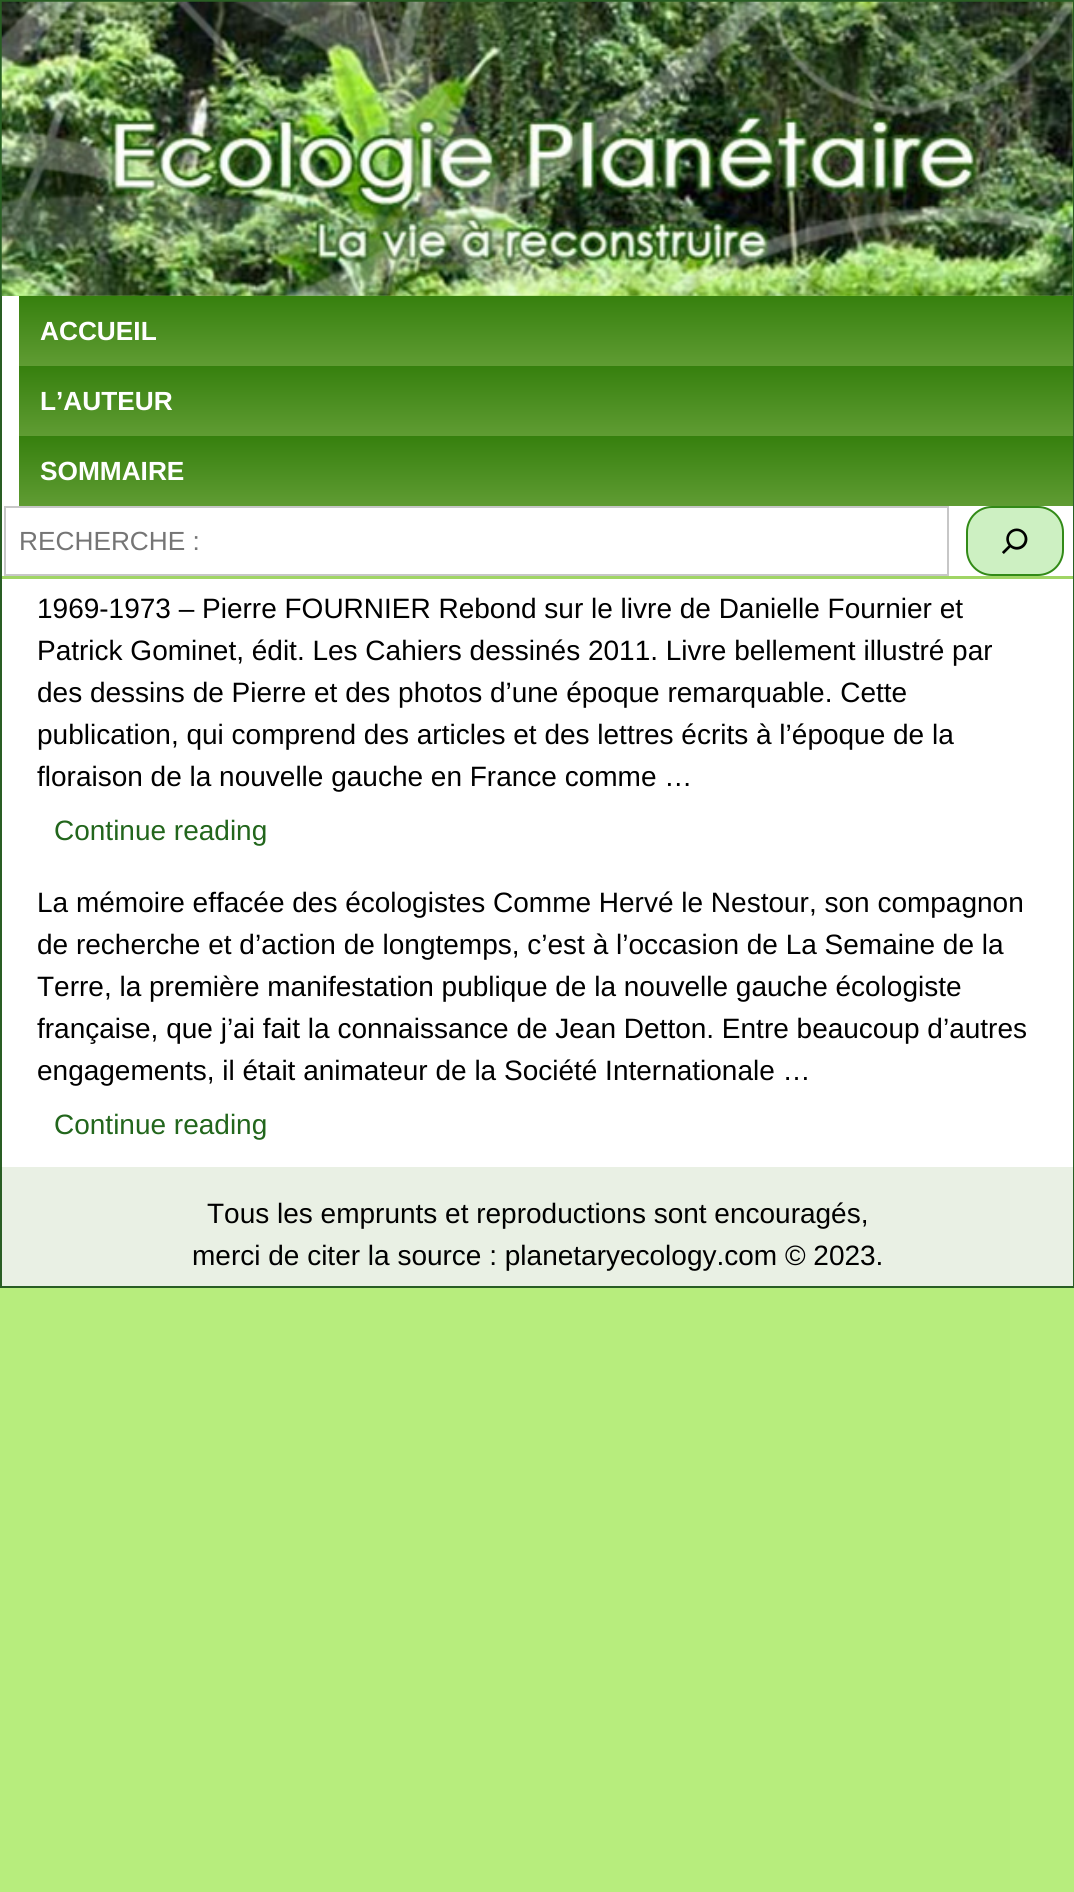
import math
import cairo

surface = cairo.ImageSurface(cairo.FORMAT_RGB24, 1074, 1892)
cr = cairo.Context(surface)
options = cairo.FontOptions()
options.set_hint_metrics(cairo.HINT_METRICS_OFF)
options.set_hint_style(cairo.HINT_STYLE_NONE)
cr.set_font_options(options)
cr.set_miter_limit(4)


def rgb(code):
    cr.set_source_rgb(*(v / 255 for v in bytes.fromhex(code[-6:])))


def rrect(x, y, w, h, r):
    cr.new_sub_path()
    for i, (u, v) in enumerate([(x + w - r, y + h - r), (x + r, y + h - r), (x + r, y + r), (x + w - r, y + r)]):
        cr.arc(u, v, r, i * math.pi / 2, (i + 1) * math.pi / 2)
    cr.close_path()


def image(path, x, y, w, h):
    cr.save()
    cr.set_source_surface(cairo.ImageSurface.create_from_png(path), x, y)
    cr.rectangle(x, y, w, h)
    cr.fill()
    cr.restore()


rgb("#b7ed7d")
cr.paint()
gradient = cairo.LinearGradient(0, 0, 0, 1288)
gradient.add_color_stop_rgba(0, 0.494, 0.757, 0.204, 1)
gradient.add_color_stop_rgba(1, 0.788, 0.933, 0.635, 1)
cr.set_source(gradient)
cr.rectangle(2, 2, 1071, 577)
cr.fill()
cr.rectangle(1, 1, 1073, 1286)
rgb("#295e24")
cr.stroke()
image("img/1.png", 1, 1, 1072, 295)
rgb("#ffffff")
cr.rectangle(2, 296, 17, 210)
cr.fill()
gradient = cairo.LinearGradient(19, 296, 19, 366)
gradient.add_color_stop_rgba(0, 0.212, 0.502, 0.055, 1)
gradient.add_color_stop_rgba(1, 0.376, 0.612, 0.2, 1)
cr.set_source(gradient)
cr.rectangle(19, 296, 1054, 70)
cr.fill()
gradient = cairo.LinearGradient(19, 366, 19, 436)
gradient.add_color_stop_rgba(0, 0.212, 0.502, 0.055, 1)
gradient.add_color_stop_rgba(1, 0.376, 0.612, 0.2, 1)
cr.set_source(gradient)
cr.rectangle(19, 366, 1054, 70)
cr.fill()
gradient = cairo.LinearGradient(19, 436, 19, 506)
gradient.add_color_stop_rgba(0, 0.212, 0.502, 0.055, 1)
gradient.add_color_stop_rgba(1, 0.376, 0.612, 0.2, 1)
cr.set_source(gradient)
cr.rectangle(19, 436, 1054, 70)
cr.fill()
rgb("#ffffff")
cr.rectangle(2, 506, 1071, 70)
cr.fill()
cr.rectangle(5, 507, 943, 68)
rgb("#c7c7c7")
cr.stroke()
rgb("#cdf0c2")
rrect(967, 507, 96, 68, 25)
cr.fill_preserve()
rgb("#328a17")
cr.stroke()
image("img/2.png", 1002, 528, 26, 26)
rgb("#ffffff")
cr.rectangle(2, 579, 1071, 588)
cr.fill()
rgb("#e9f0e4")
cr.rectangle(2, 1167, 1071, 119)
cr.fill()
cr.select_font_face("Liberation Sans", cairo.FONT_SLANT_NORMAL, cairo.FONT_WEIGHT_BOLD)
cr.set_font_size(26.25)
rgb("#ffffff")
for x, y, s in [
    (40, 340, "ACCUEIL"),
    (40, 410, "L’AUTEUR"),
    (40, 480, "SOMMAIRE"),
]:
    cr.move_to(x, y)
    cr.show_text(s)
cr.select_font_face("Liberation Sans")
rgb("#757575")
cr.move_to(19, 550)
cr.show_text("RECHERCHE :")
cr.set_font_size(28)
rgb("#000000")
for x, y, s in [
    (37, 618, "1969-1973 – Pierre FOURNIER Rebond sur le livre de Danielle Fournier et"),
    (37, 660, "Patrick Gominet, édit. Les Cahiers dessinés 2011. Livre bellement illustré par"),
    (37, 702, "des dessins de Pierre et des photos d’une époque remarquable. Cette"),
    (37, 744, "publication, qui comprend des articles et des lettres écrits à l’époque de la"),
    (37, 786, "floraison de la nouvelle gauche en France comme …"),
]:
    cr.move_to(x, y)
    cr.show_text(s)
rgb("#22661c")
cr.move_to(54, 840)
cr.show_text("Continue reading")
rgb("#000000")
for x, y, s in [
    (37, 912, "La mémoire effacée des écologistes Comme Hervé le Nestour, son compagnon"),
    (37, 954, "de recherche et d’action de longtemps, c’est à l’occasion de La Semaine de la"),
    (37, 996, "Terre, la première manifestation publique de la nouvelle gauche écologiste"),
    (37, 1038, "française, que j’ai fait la connaissance de Jean Detton. Entre beaucoup d’autres"),
    (37, 1080, "engagements, il était animateur de la Société Internationale …"),
]:
    cr.move_to(x, y)
    cr.show_text(s)
rgb("#22661c")
cr.move_to(54, 1134)
cr.show_text("Continue reading")
rgb("#000000")
cr.move_to(207, 1223)
cr.show_text("Tous les emprunts et reproductions sont encouragés,")
cr.move_to(192, 1265)
cr.show_text("merci de citer la source : planetaryecology.com © 2023.")
surface.write_to_png("page.png")
